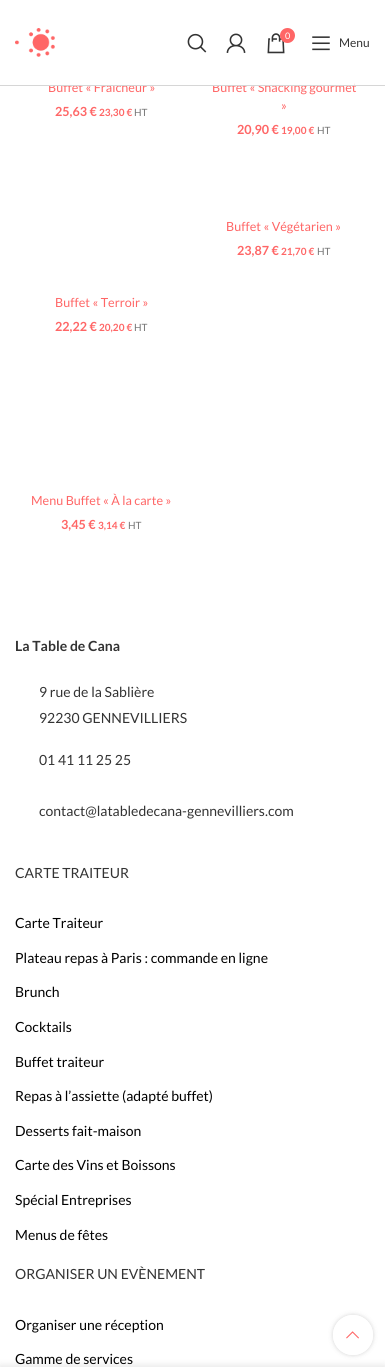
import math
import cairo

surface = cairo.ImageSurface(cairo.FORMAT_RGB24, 385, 1367)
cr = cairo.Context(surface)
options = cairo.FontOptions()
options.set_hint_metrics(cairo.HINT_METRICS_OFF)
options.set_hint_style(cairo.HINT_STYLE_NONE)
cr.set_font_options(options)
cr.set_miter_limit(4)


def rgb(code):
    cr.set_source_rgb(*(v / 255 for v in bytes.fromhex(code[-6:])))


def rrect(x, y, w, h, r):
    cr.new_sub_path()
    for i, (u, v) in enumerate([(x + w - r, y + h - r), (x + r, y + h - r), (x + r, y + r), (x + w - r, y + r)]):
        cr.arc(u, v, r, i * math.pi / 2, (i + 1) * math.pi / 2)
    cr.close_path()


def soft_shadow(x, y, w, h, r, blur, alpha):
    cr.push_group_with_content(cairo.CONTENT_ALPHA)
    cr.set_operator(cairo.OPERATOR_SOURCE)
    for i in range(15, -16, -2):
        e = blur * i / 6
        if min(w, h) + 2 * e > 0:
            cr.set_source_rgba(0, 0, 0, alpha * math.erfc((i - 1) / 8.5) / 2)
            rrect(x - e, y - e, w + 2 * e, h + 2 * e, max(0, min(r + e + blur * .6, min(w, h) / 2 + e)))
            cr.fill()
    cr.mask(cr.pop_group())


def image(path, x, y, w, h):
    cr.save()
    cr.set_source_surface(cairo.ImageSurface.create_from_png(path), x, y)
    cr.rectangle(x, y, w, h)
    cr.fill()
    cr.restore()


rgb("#ffffff")
cr.paint()
image("img/1.png", 15, 28, 40, 29)
image("img/2.png", 187, 33, 20, 20)
image("img/3.png", 226, 33, 20, 20)
image("img/4.png", 267, 33, 18, 21)
rgb("#ff6666")
cr.arc(287.5, 35.5, 7.5, 0, 2 * math.pi)
cr.fill()
image("img/5.png", 312, 36, 18, 15)
cr.save()
cr.set_fill_rule(cairo.FILL_RULE_EVEN_ODD)
cr.new_path()
cr.move_to(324, 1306)
cr.line_to(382, 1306)
cr.line_to(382, 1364)
cr.line_to(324, 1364)
cr.close_path()
cr.move_to(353, 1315)
cr.curve_to(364, 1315, 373, 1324, 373, 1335)
cr.curve_to(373, 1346, 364, 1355, 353, 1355)
cr.curve_to(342, 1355, 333, 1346, 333, 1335)
cr.curve_to(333, 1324, 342, 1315, 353, 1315)
cr.close_path()
cr.clip()
rgb("#000000")
soft_shadow(333, 1315, 40, 40, 20, 2.5, 0.17)
cr.restore()
cr.set_source_rgba(1, 1, 1, 0.9)
cr.arc(353, 1335, 20, 0, 2 * math.pi)
cr.fill()
image("img/6.png", 346, 1331, 13, 8)
rgb("#000000")
soft_shadow(0, 1367, 385, 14, 0, 4.5, 0.14)
cr.select_font_face("Lato")
cr.set_font_size(9)
rgb("#ffffff")
cr.move_to(285, 39)
cr.show_text("0")
cr.set_font_size(12)
rgb("#333333")
cr.move_to(339, 47)
cr.show_text("Menu")
cr.set_font_size(12.6)
rgb("#ff6666")
cr.move_to(48, 92)
cr.show_text("Buffet « Fraicheur »")
cr.select_font_face("Lato", cairo.FONT_SLANT_NORMAL, cairo.FONT_WEIGHT_BOLD)
cr.move_to(55, 116)
cr.show_text("25,63 €")
cr.set_font_size(10)
cr.move_to(99, 116)
cr.show_text("23,30 €")
cr.select_font_face("Lato")
rgb("#767676")
cr.move_to(134, 116)
cr.show_text("HT")
cr.set_font_size(12.6)
rgb("#ff6666")
cr.move_to(212, 92)
cr.show_text("Buffet « Snacking gourmet")
rgb("#d6d6d6")
cr.rectangle(0, 85, 385, 1)
cr.fill()
rgb("#ffffff")
cr.rectangle(48, 82, 306, 3)
cr.fill()
rgb("#ff6666")
cr.move_to(281, 110)
cr.show_text("»")
cr.select_font_face("Lato", cairo.FONT_SLANT_NORMAL, cairo.FONT_WEIGHT_BOLD)
cr.move_to(237, 134)
cr.show_text("20,90 €")
cr.set_font_size(10)
cr.move_to(281, 134)
cr.show_text("19,00 €")
cr.select_font_face("Lato")
rgb("#767676")
cr.move_to(317, 134)
cr.show_text("HT")
cr.set_font_size(12.6)
rgb("#ff6666")
cr.move_to(226, 231)
cr.show_text("Buffet « Végétarien »")
cr.select_font_face("Lato", cairo.FONT_SLANT_NORMAL, cairo.FONT_WEIGHT_BOLD)
cr.move_to(237, 255)
cr.show_text("23,87 €")
cr.set_font_size(10)
cr.move_to(281, 255)
cr.show_text("21,70 €")
cr.select_font_face("Lato")
rgb("#767676")
cr.move_to(317, 255)
cr.show_text("HT")
cr.set_font_size(12.6)
rgb("#ff6666")
cr.move_to(55, 307)
cr.show_text("Buffet « Terroir »")
cr.select_font_face("Lato", cairo.FONT_SLANT_NORMAL, cairo.FONT_WEIGHT_BOLD)
cr.move_to(55, 331)
cr.show_text("22,22 €")
cr.set_font_size(10)
cr.move_to(99, 331)
cr.show_text("20,20 €")
cr.select_font_face("Lato")
rgb("#767676")
cr.move_to(134, 331)
cr.show_text("HT")
cr.set_font_size(12.6)
rgb("#ff6666")
cr.move_to(31, 505)
cr.show_text("Menu Buffet « À la carte »")
cr.select_font_face("Lato", cairo.FONT_SLANT_NORMAL, cairo.FONT_WEIGHT_BOLD)
cr.move_to(61, 529)
cr.show_text("3,45 €")
cr.set_font_size(10)
cr.move_to(98, 529)
cr.show_text("3,14 €")
cr.select_font_face("Lato")
rgb("#767676")
cr.move_to(128, 529)
cr.show_text("HT")
cr.select_font_face("Lato", cairo.FONT_SLANT_NORMAL, cairo.FONT_WEIGHT_BOLD)
cr.set_font_size(14)
rgb("#333333")
cr.move_to(15, 651)
cr.show_text("La Table de Cana")
cr.select_font_face("Lato")
for x, y, s in [
    (39, 697, "9 rue de la Sablière"),
    (39, 723, "92230 GENNEVILLIERS"),
    (39, 765, "01 41 11 25 25"),
    (39, 816, "contact@latabledecana-gennevilliers.com"),
    (15, 878, "CARTE TRAITEUR"),
]:
    cr.move_to(x, y)
    cr.show_text(s)
rgb("#000000")
for x, y, s in [
    (15, 928, "Carte Traiteur"),
    (15, 963, "Plateau repas à Paris : commande en ligne"),
    (15, 997, "Brunch"),
    (15, 1032, "Cocktails"),
    (15, 1067, "Buffet traiteur"),
    (15, 1101, "Repas à l’assiette (adapté buffet)"),
    (15, 1136, "Desserts fait-maison"),
    (15, 1170, "Carte des Vins et Boissons"),
    (15, 1205, "Spécial Entreprises"),
    (15, 1240, "Menus de fêtes"),
]:
    cr.move_to(x, y)
    cr.show_text(s)
rgb("#333333")
cr.move_to(15, 1279)
cr.show_text("ORGANISER UN EVÈNEMENT")
rgb("#000000")
cr.move_to(15, 1330)
cr.show_text("Organiser une réception")
cr.move_to(15, 1364)
cr.show_text("Gamme de services")
surface.write_to_png("page.png")
